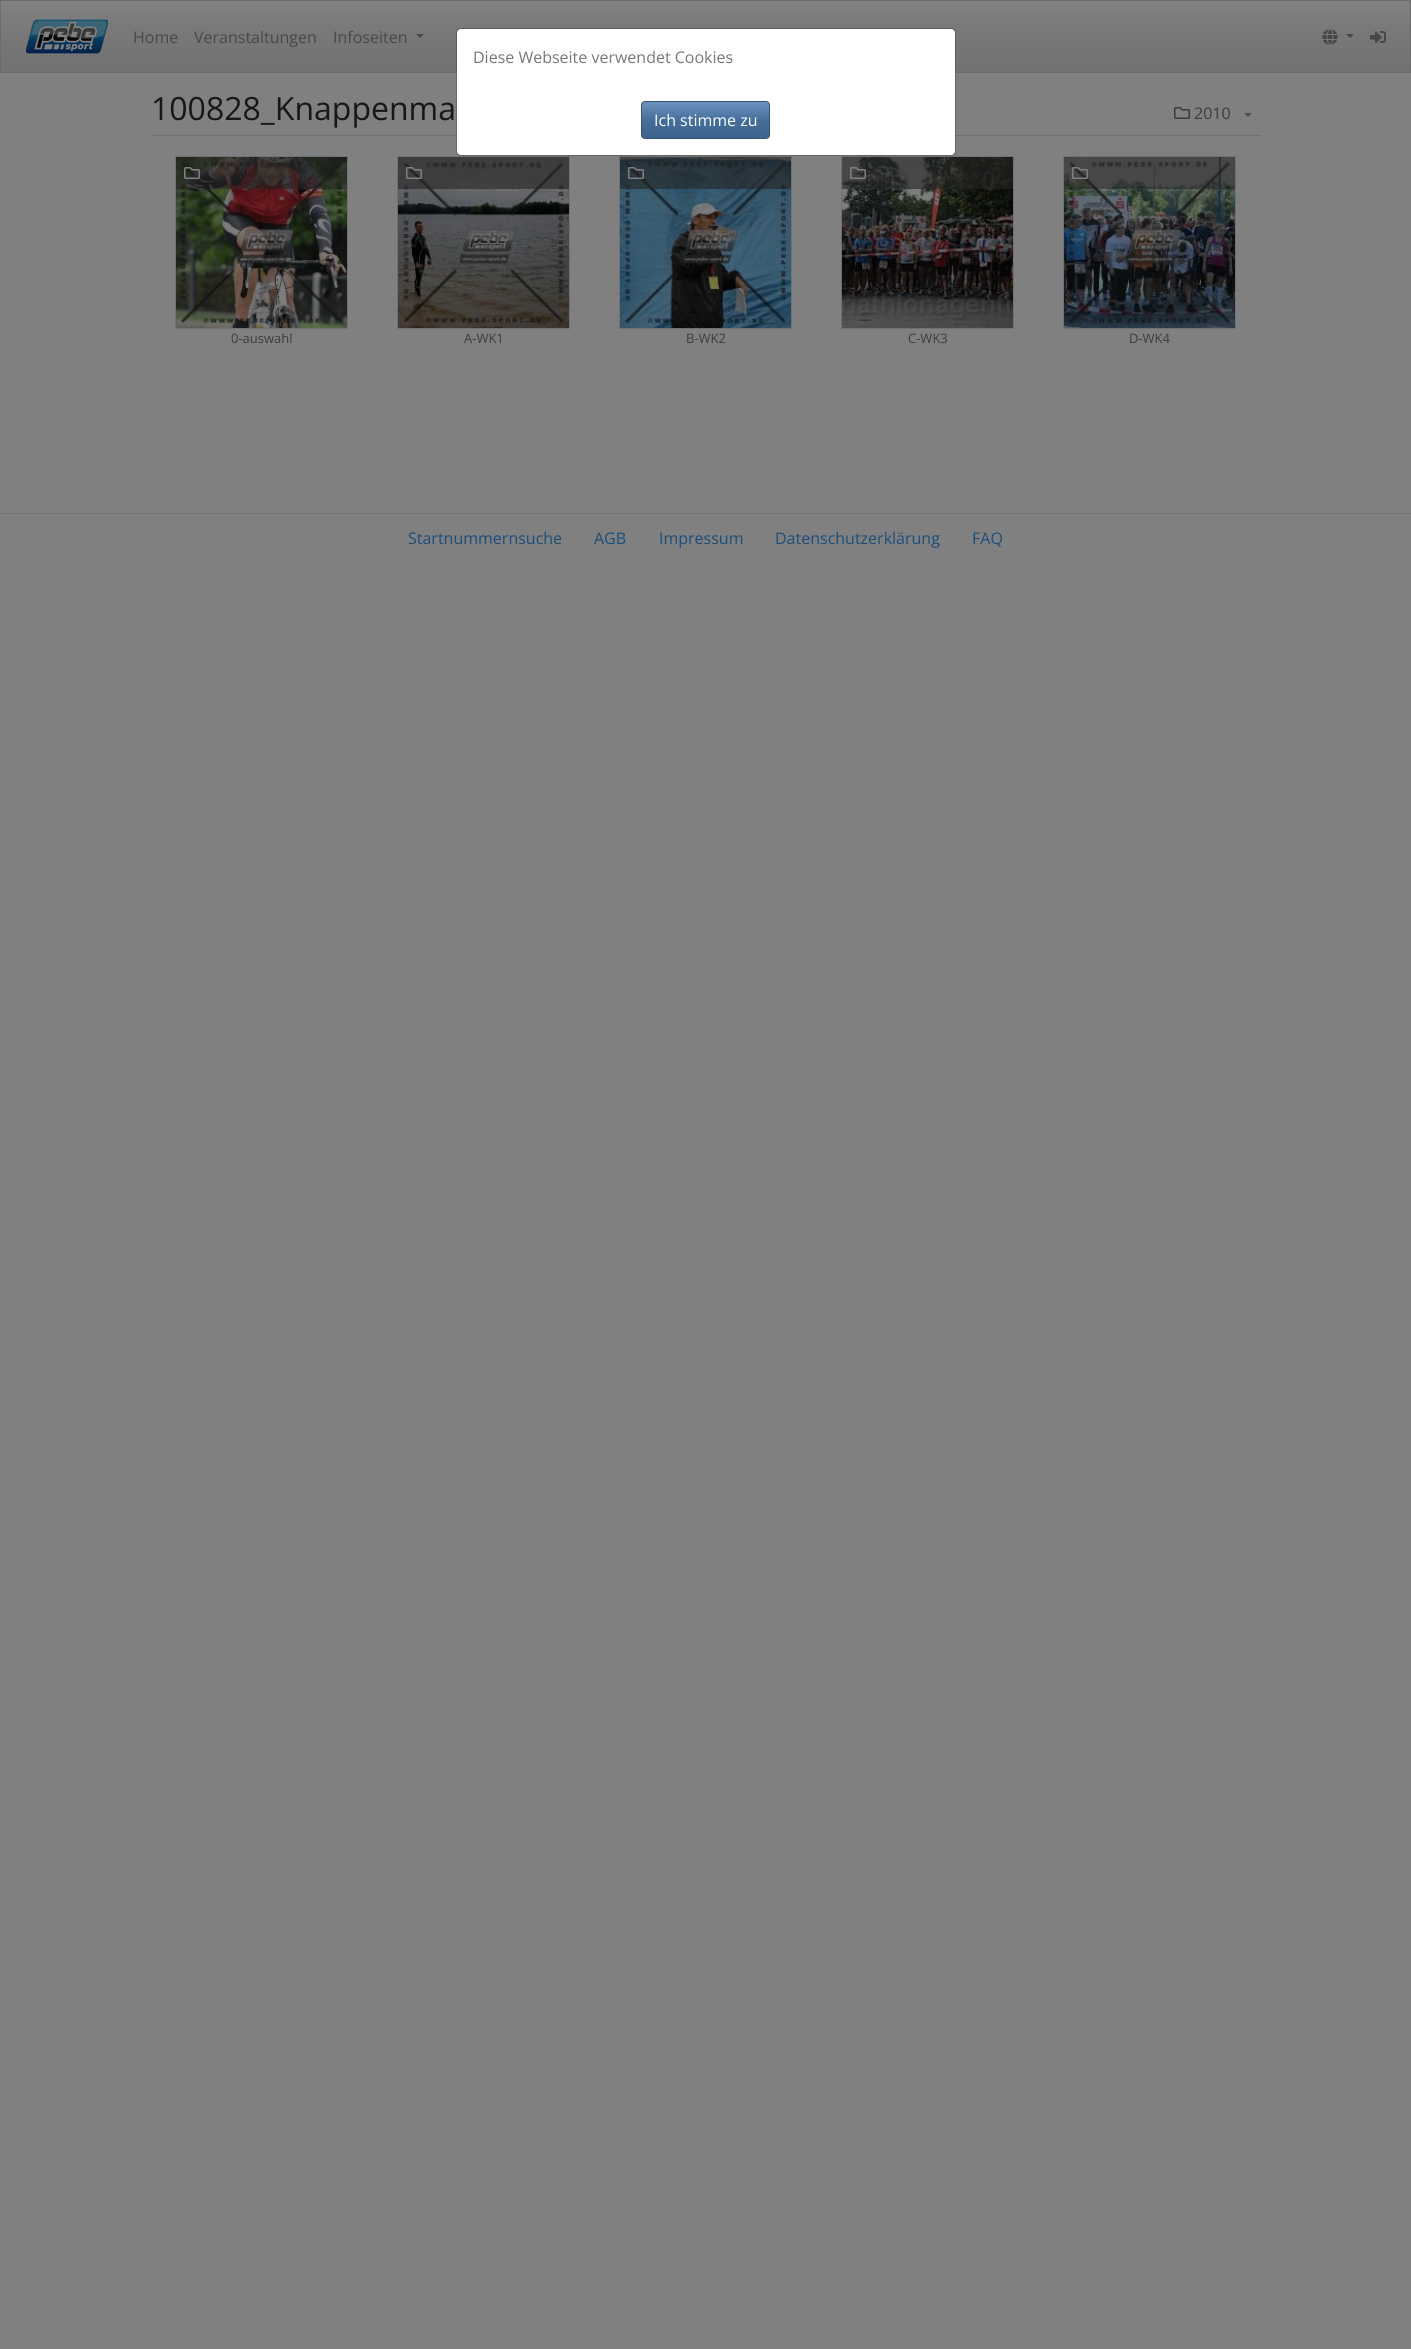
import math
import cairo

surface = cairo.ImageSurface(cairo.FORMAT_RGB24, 1411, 2349)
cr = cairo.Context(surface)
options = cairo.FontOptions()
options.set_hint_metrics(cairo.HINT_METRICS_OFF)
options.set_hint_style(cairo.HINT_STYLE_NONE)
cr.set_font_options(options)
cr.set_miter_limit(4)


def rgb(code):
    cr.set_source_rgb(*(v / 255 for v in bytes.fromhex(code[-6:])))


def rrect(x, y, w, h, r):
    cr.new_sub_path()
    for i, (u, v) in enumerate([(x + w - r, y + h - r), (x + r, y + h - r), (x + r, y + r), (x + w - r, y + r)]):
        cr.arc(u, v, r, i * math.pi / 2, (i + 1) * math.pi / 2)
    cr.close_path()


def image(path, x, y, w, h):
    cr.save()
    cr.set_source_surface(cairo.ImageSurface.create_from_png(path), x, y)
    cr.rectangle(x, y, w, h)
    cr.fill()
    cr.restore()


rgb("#808080")
cr.paint()
gradient = cairo.LinearGradient(706, 1, 706, 72)
gradient.add_color_stop_rgba(0, 0.502, 0.502, 0.502, 1)
gradient.add_color_stop_rgba(0.5, 0.467, 0.467, 0.467, 1)
gradient.add_color_stop_rgba(1, 0.447, 0.447, 0.447, 1)
cr.set_source(gradient)
cr.rectangle(1, 11, 1409, 61)
cr.fill()
cr.rectangle(0.5, 0.5, 1410, 72)
rgb("#6b6b6b")
cr.set_line_width(1)
cr.stroke()
image("img/1.png", 25, 19, 84, 35)
rgb("#484848")
cr.new_path()
cr.move_to(416, 34)
cr.line_to(424, 34)
cr.line_to(420, 38)
cr.close_path()
cr.fill()
image("img/2.png", 1322, 29, 16, 16)
cr.new_path()
cr.move_to(1346, 34)
cr.line_to(1354, 34)
cr.line_to(1350, 38)
cr.close_path()
cr.fill()
image("img/3.png", 1370, 31, 16, 13)
rgb("#6f7173")
cr.rectangle(151, 135, 1110, 1)
cr.fill()
rgb("#ffffff")
rrect(457, 29, 498, 126, 4)
cr.fill()
rrect(456.5, 28.5, 499, 127, 4.5)
cr.set_source_rgba(0, 0, 0, 0.2)
cr.stroke()
cr.save()
rrect(641, 101, 129, 38, 4)
cr.clip()
gradient = cairo.LinearGradient(706, 102, 706, 138)
gradient.add_color_stop_rgba(0, 0.427, 0.58, 0.749, 1)
gradient.add_color_stop_rgba(0.5, 0.267, 0.431, 0.608, 1)
gradient.add_color_stop_rgba(1, 0.243, 0.392, 0.553, 1)
cr.set_source(gradient)
cr.rectangle(642, 102, 127, 36)
cr.fill()
cr.restore()
rrect(641.5, 101.5, 128, 37, 3.5)
rgb("#345578")
cr.stroke()
image("img/4.png", 1174, 107, 16, 12)
rgb("#4d4d4d")
cr.new_path()
cr.move_to(1244, 113)
cr.line_to(1252, 113)
cr.line_to(1248, 117)
cr.close_path()
cr.fill()
image("img/5.png", 176, 157, 171, 171)
cr.rectangle(175.5, 156.5, 172, 172)
rgb("#6f7173")
cr.stroke()
cr.set_source_rgba(0.137, 0.137, 0.137, 0.6)
cr.rectangle(176, 157, 171, 32)
cr.fill()
image("img/6.png", 184, 167, 16, 12)
image("img/7.png", 398, 157, 171, 171)
cr.rectangle(397.5, 156.5, 172, 172)
rgb("#6f7173")
cr.stroke()
cr.set_source_rgba(0.137, 0.137, 0.137, 0.6)
cr.rectangle(398, 157, 171, 32)
cr.fill()
image("img/8.png", 406, 167, 16, 12)
image("img/9.png", 620, 157, 171, 171)
cr.rectangle(619.5, 156.5, 172, 172)
rgb("#6f7173")
cr.stroke()
cr.set_source_rgba(0.137, 0.137, 0.137, 0.6)
cr.rectangle(620, 157, 171, 32)
cr.fill()
image("img/10.png", 628, 167, 16, 12)
image("img/11.png", 842, 157, 171, 171)
cr.rectangle(841.5, 156.5, 172, 172)
rgb("#6f7173")
cr.stroke()
cr.set_source_rgba(0.137, 0.137, 0.137, 0.6)
cr.rectangle(842, 157, 171, 32)
cr.fill()
image("img/12.png", 850, 167, 16, 12)
image("img/13.png", 1064, 157, 171, 171)
cr.rectangle(1063.5, 156.5, 172, 172)
rgb("#6f7173")
cr.stroke()
cr.set_source_rgba(0.137, 0.137, 0.137, 0.6)
cr.rectangle(1064, 157, 171, 32)
cr.fill()
image("img/14.png", 1072, 167, 16, 12)
rgb("#6f7173")
cr.rectangle(0, 513, 1411, 1)
cr.fill()
cr.select_font_face("Open Sans")
cr.set_font_size(16)
rgb("#484848")
for x, y, s in [
    (133, 43, "Home"),
    (194, 43, "Veranstaltungen"),
    (333, 43, "Infoseiten"),
]:
    cr.move_to(x, y)
    cr.show_text(s)
rgb("#777777")
cr.move_to(473, 63)
cr.show_text("Diese Webseite verwendet Cookies")
rgb("#ffffff")
cr.move_to(654, 126)
cr.show_text("Ich stimme zu")
cr.set_font_size(32)
rgb("#171717")
cr.move_to(151, 120)
cr.show_text("100828_Knappenma")
cr.set_font_size(16)
rgb("#3c3c3c")
cr.move_to(1194, 119)
cr.show_text("2010")
cr.set_font_size(13)
for x, y, s in [
    (231, 343, "0-auswahl"),
    (464, 343, "A-WK1"),
    (686, 343, "B-WK2"),
    (908, 343, "C-WK3"),
    (1129, 343, "D-WK4"),
]:
    cr.move_to(x, y)
    cr.show_text(s)
cr.set_font_size(16)
rgb("#1a4d7a")
for x, y, s in [
    (408, 544, "Startnummernsuche"),
    (594, 544, "AGB"),
    (659, 544, "Impressum"),
    (775, 544, "Datenschutzerklärung"),
    (972, 544, "FAQ"),
]:
    cr.move_to(x, y)
    cr.show_text(s)
surface.write_to_png("page.png")
